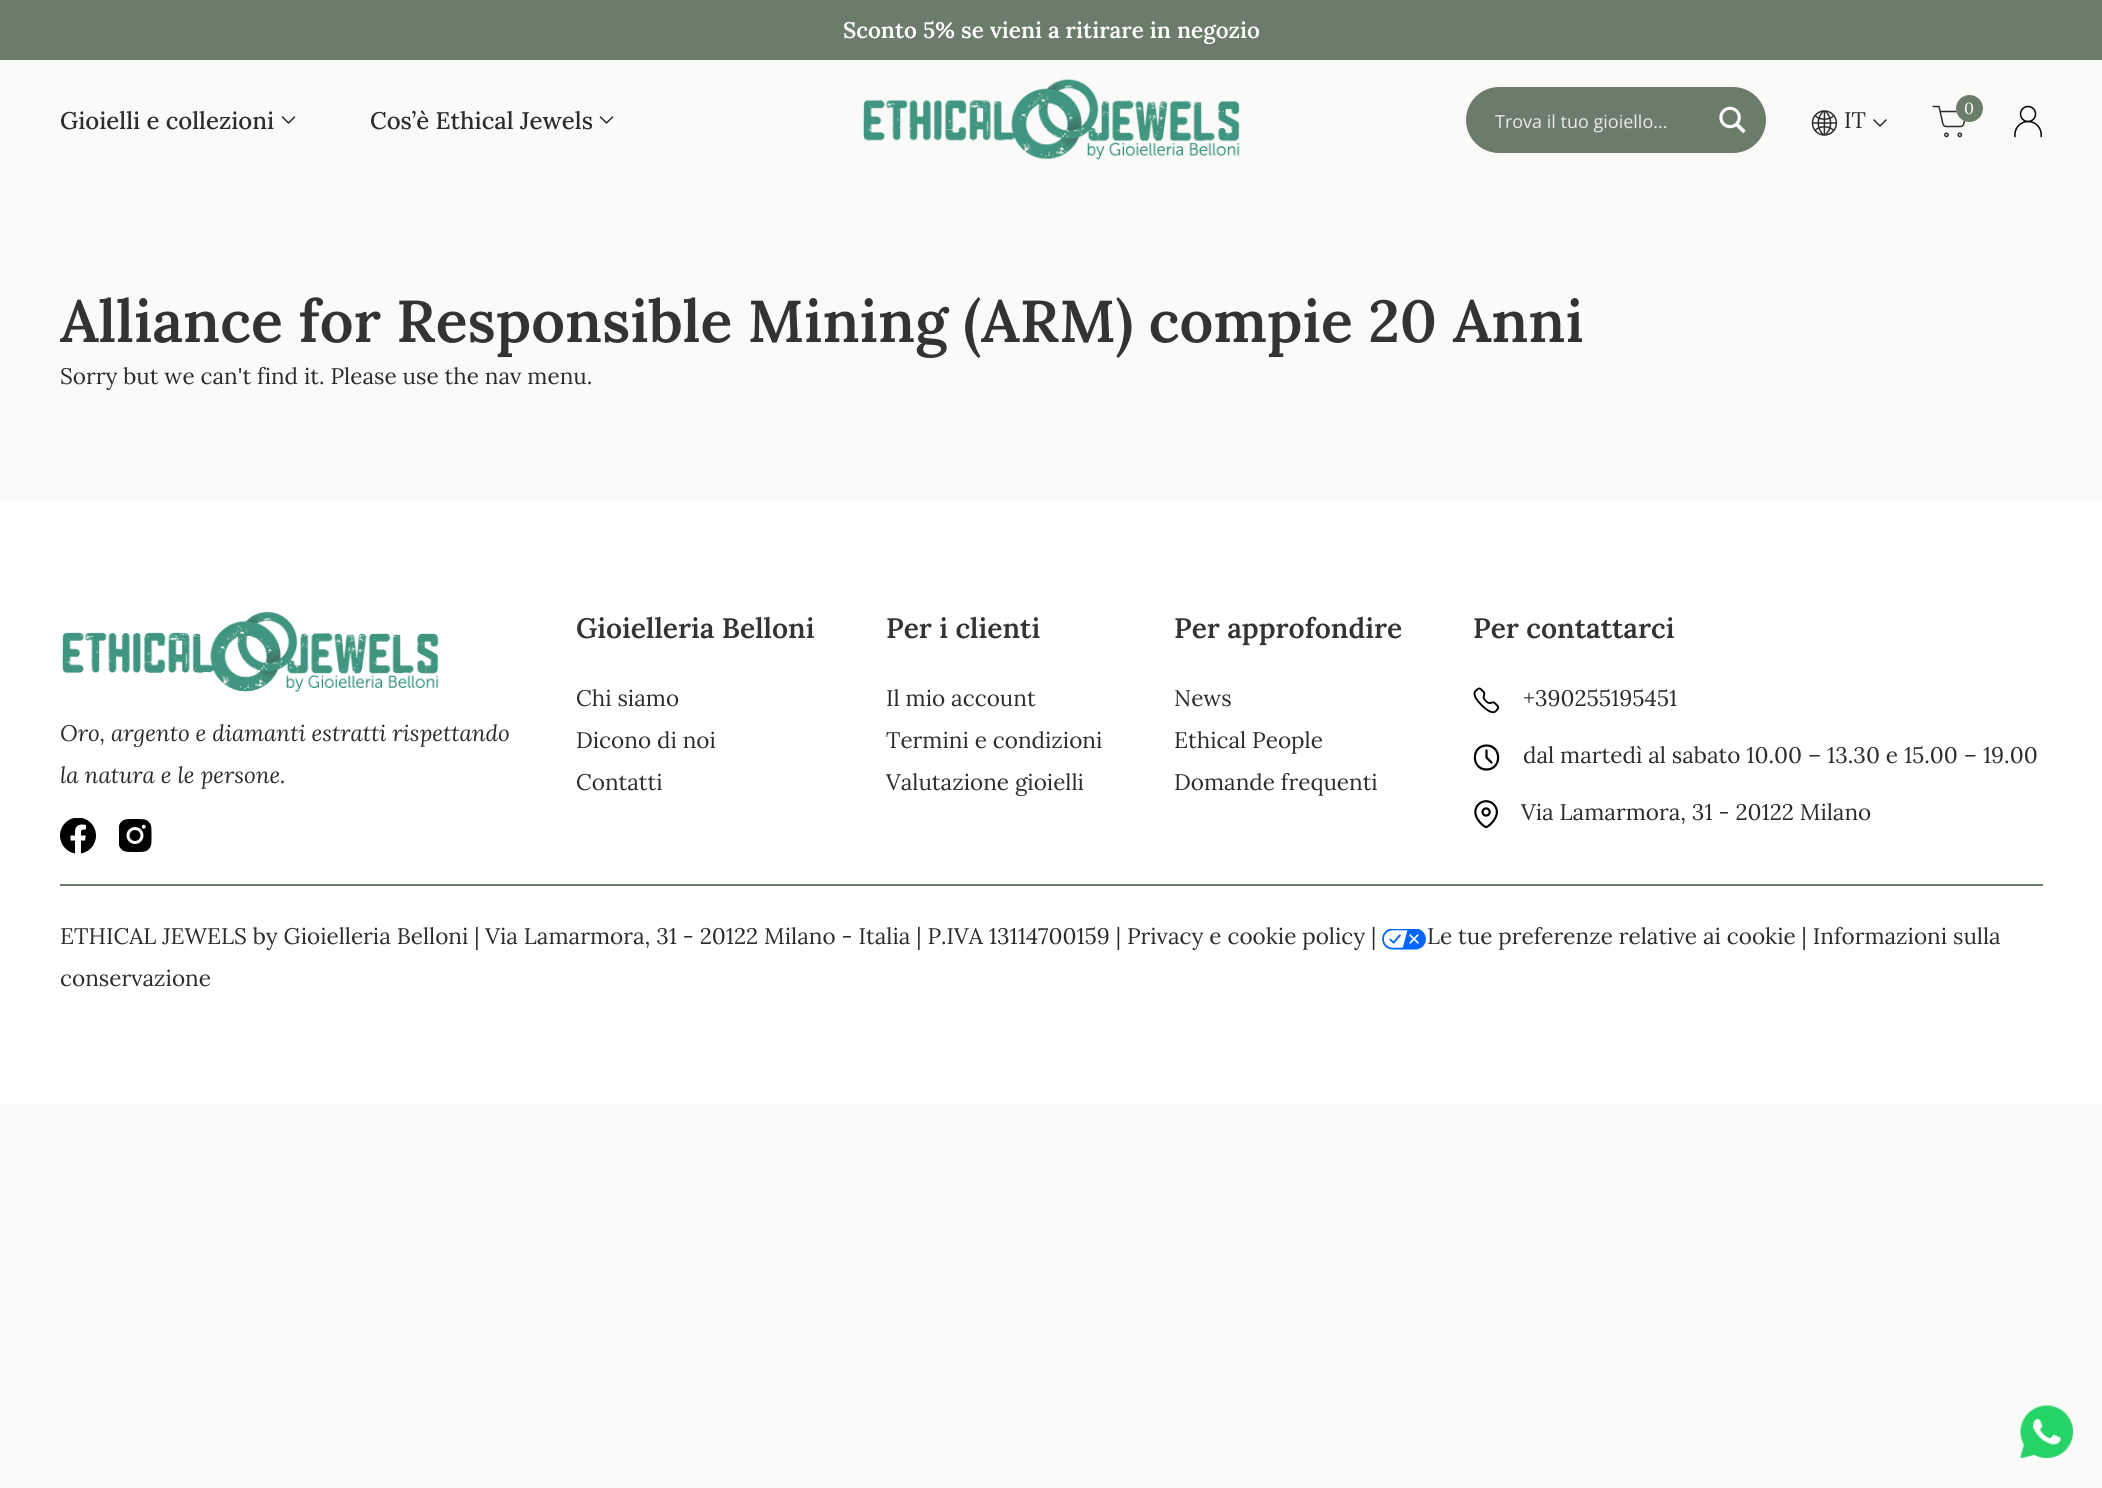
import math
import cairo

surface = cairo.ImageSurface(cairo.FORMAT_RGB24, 2102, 1488)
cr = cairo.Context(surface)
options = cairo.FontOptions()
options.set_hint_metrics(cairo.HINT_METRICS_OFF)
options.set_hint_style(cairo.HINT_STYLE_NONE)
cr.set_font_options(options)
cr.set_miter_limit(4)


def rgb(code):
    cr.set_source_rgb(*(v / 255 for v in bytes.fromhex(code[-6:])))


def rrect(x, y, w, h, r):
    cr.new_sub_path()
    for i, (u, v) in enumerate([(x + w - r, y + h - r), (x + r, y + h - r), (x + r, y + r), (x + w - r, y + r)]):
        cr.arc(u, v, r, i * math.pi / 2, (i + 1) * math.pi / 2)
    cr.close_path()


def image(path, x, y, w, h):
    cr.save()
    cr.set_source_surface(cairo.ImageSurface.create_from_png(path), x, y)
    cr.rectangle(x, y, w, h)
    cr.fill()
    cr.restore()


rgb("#fafaf8")
cr.paint()
rgb("#6c7c6b")
cr.rectangle(0, 0, 2102, 60)
cr.fill()
cr.new_path()
cr.move_to(282.5, 117)
cr.line_to(288.5, 123)
cr.line_to(294.5, 117)
rgb("#2c2c2c")
cr.set_line_width(1.5)
cr.set_line_cap(cairo.LINE_CAP_ROUND)
cr.set_line_join(cairo.LINE_JOIN_ROUND)
cr.stroke()
cr.new_path()
cr.move_to(600.5, 117)
cr.line_to(606.5, 123)
cr.line_to(612.5, 117)
cr.stroke()
image("img/1.png", 863, 78, 377, 82)
rgb("#6c7c6b")
rrect(1466, 87, 300, 66, 33)
cr.fill()
image("img/2.png", 1719, 106, 27, 28)
image("img/3.png", 1811, 110, 27, 26)
cr.new_path()
cr.move_to(1874, 120)
cr.line_to(1880, 126)
cr.line_to(1886, 120)
rgb("#2c2c2c")
cr.stroke()
image("img/4.png", 1932, 105, 34, 33)
rgb("#6c7c6b")
cr.arc(1969.5, 108.5, 13.5, 0, 2 * math.pi)
cr.fill()
image("img/5.png", 2014, 105, 28, 33)
rgb("#ffffff")
cr.rectangle(0, 503, 2102, 601)
cr.fill()
image("img/6.png", 62, 611, 377, 81)
image("img/7.png", 60, 818, 36, 36)
image("img/8.png", 119, 819, 33, 33)
image("img/9.png", 1473, 687, 27, 27)
cr.new_path()
cr.move_to(1486.5, 769.5)
cr.curve_to(1502, 769.5, 1502, 745.5, 1486.5, 745.5)
cr.curve_to(1471, 745.5, 1471, 769.5, 1486.5, 769.5)
cr.close_path()
cr.move_to(1486.5, 750.5)
cr.line_to(1486.5, 757.5)
cr.line_to(1491.5, 762.5)
rgb("#000000")
cr.set_line_width(2.2)
cr.stroke()
image("img/10.png", 1474, 800, 24, 29)
rgb("#6c7c6b")
cr.rectangle(60, 884, 1983, 2)
cr.fill()
image("img/11.png", 1382, 929, 44, 21)
image("img/12.png", 2020, 1405, 53, 53)
cr.select_font_face("Lora SemiBold")
cr.set_font_size(22.5)
rgb("#ffffff")
cr.move_to(843, 38)
cr.show_text("Sconto 5% se vieni a ritirare in negozio")
cr.select_font_face("Lora Medium")
cr.set_font_size(24)
rgb("#2c2c2c")
cr.move_to(60, 129)
cr.show_text("Gioielli e collezioni")
cr.move_to(370, 129)
cr.show_text("Cos’è Ethical Jewels")
cr.select_font_face("Open Sans")
cr.set_font_size(18)
rgb("#e9ebe9")
cr.move_to(1495, 128)
cr.show_text("Trova il tuo gioiello...")
cr.select_font_face("Lora")
cr.set_font_size(22.5)
rgb("#2c2c2c")
cr.move_to(1844, 128)
cr.show_text("IT")
cr.set_font_size(16)
rgb("#ffffff")
cr.move_to(1964, 114)
cr.show_text("0")
cr.select_font_face("Lora SemiBold")
cr.set_font_size(59.05)
rgb("#333333")
cr.move_to(60, 342)
cr.show_text("Alliance for Responsible Mining (ARM) compie 20 Anni")
cr.select_font_face("Lora")
cr.set_font_size(22.5)
rgb("#2c2c2c")
cr.move_to(60, 384)
cr.show_text("Sorry but we can't find it. Please use the nav menu.")
cr.select_font_face("Lora", cairo.FONT_SLANT_ITALIC)
cr.move_to(60, 741)
cr.show_text("Oro, argento e diamanti estratti rispettando")
cr.move_to(60, 783)
cr.show_text("la natura e le persone.")
cr.select_font_face("Lora SemiBold")
cr.set_font_size(28.1)
rgb("#333333")
cr.move_to(576, 638)
cr.show_text("Gioielleria Belloni")
cr.select_font_face("Lora")
cr.set_font_size(22.5)
rgb("#2c2c2c")
for x, y, s in [
    (576, 706, "Chi siamo"),
    (576, 748, "Dicono di noi"),
    (576, 790, "Contatti"),
]:
    cr.move_to(x, y)
    cr.show_text(s)
cr.select_font_face("Lora SemiBold")
cr.set_font_size(28.1)
rgb("#333333")
cr.move_to(886, 638)
cr.show_text("Per i clienti")
cr.select_font_face("Lora")
cr.set_font_size(22.5)
rgb("#2c2c2c")
for x, y, s in [
    (886, 706, "Il mio account"),
    (886, 748, "Termini e condizioni"),
    (886, 790, "Valutazione gioielli"),
]:
    cr.move_to(x, y)
    cr.show_text(s)
cr.select_font_face("Lora SemiBold")
cr.set_font_size(28.1)
rgb("#333333")
cr.move_to(1174, 638)
cr.show_text("Per approfondire")
cr.select_font_face("Lora")
cr.set_font_size(22.5)
rgb("#2c2c2c")
for x, y, s in [
    (1174, 706, "News"),
    (1174, 748, "Ethical People"),
    (1174, 790, "Domande frequenti"),
]:
    cr.move_to(x, y)
    cr.show_text(s)
cr.select_font_face("Lora SemiBold")
cr.set_font_size(28.1)
rgb("#333333")
cr.move_to(1473, 638)
cr.show_text("Per contattarci")
cr.select_font_face("Lora")
cr.set_font_size(22.5)
rgb("#2c2c2c")
for x, y, s in [
    (1523, 706, "+390255195451"),
    (1523, 763, "dal martedì al sabato 10.00 – 13.30 e 15.00 – 19.00"),
    (1521, 820, "Via Lamarmora, 31 - 20122 Milano"),
    (60, 944, "ETHICAL JEWELS by Gioielleria Belloni | Via Lamarmora, 31 - 20122 Milano - Italia | P.IVA 13114700159 | Privacy e cookie policy |"),
    (1427, 944, "Le tue preferenze relative ai cookie | Informazioni sulla"),
    (60, 986, "conservazione"),
]:
    cr.move_to(x, y)
    cr.show_text(s)
surface.write_to_png("page.png")
